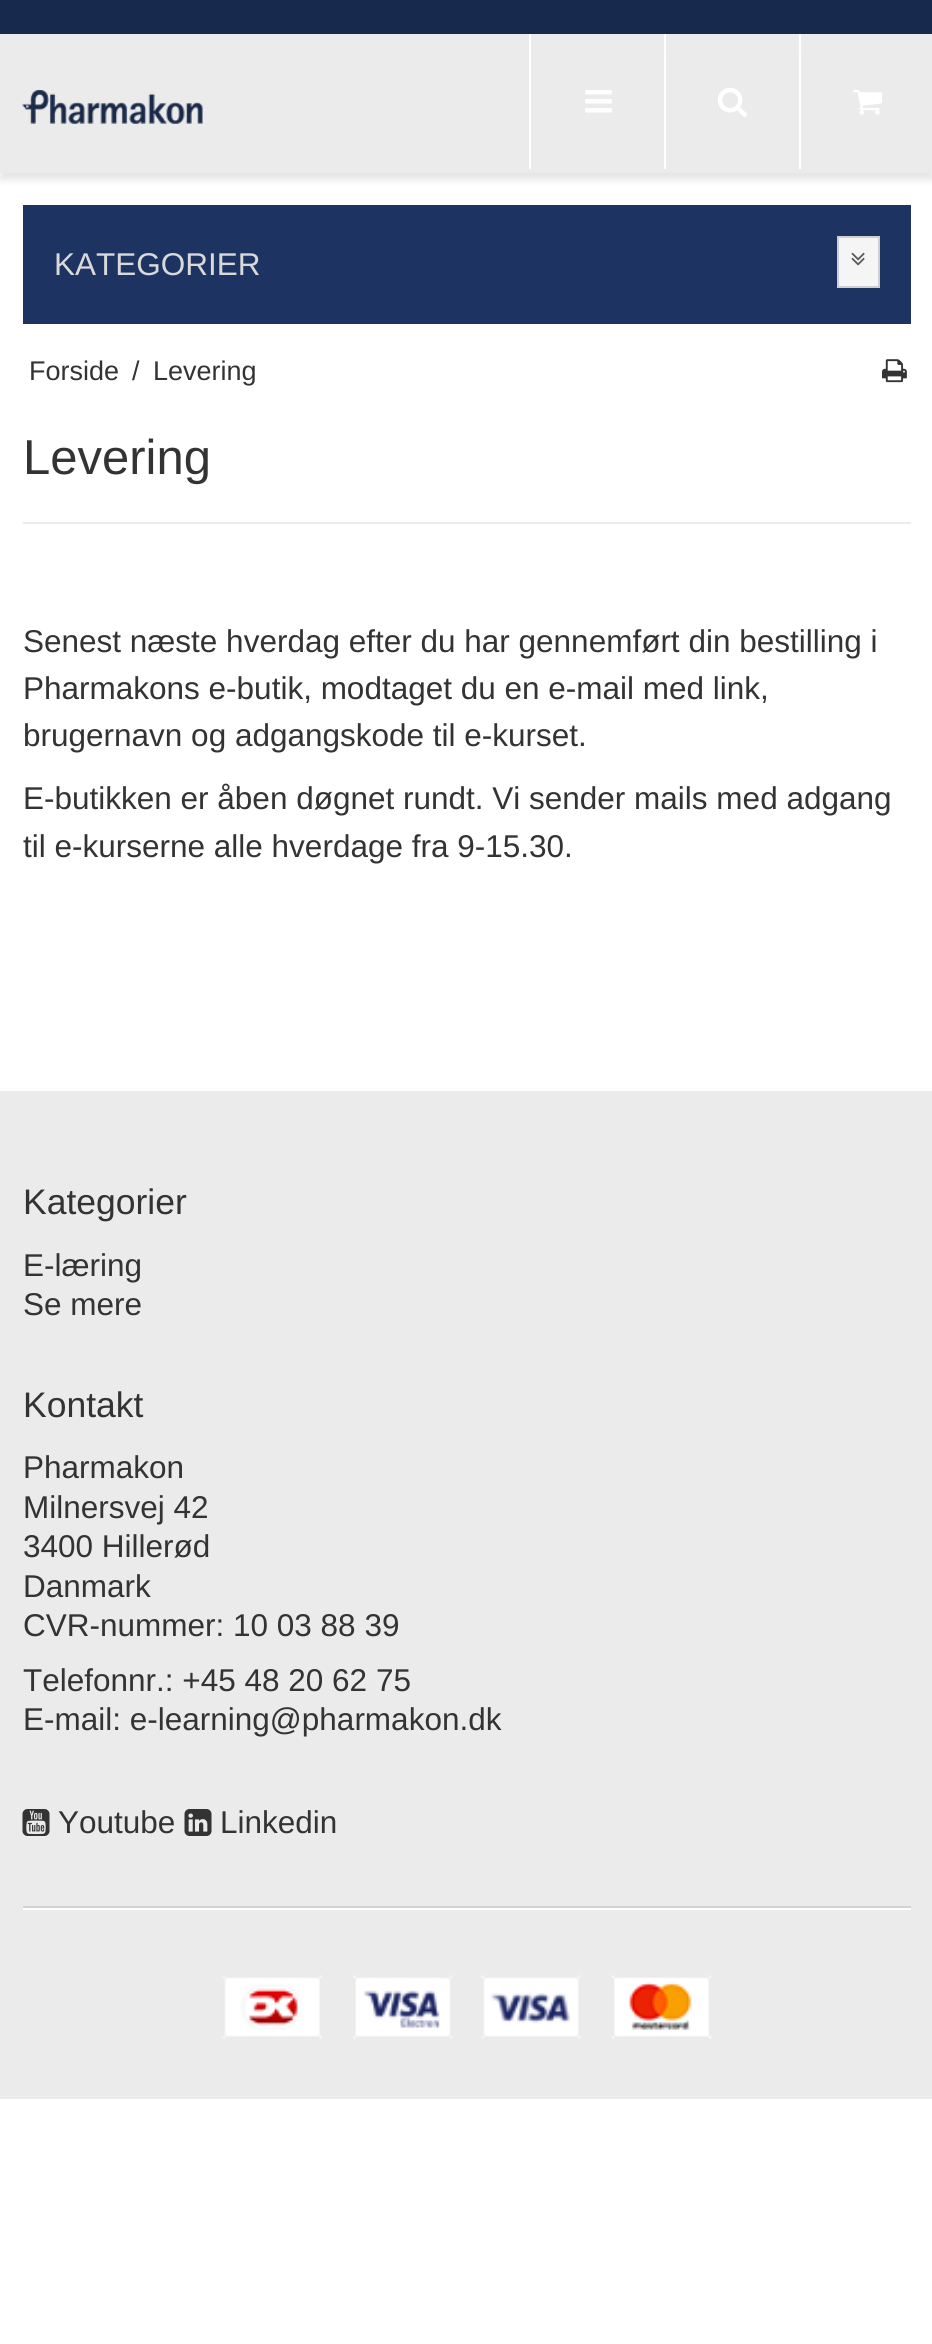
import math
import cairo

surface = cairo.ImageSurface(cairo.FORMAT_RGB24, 932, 2344)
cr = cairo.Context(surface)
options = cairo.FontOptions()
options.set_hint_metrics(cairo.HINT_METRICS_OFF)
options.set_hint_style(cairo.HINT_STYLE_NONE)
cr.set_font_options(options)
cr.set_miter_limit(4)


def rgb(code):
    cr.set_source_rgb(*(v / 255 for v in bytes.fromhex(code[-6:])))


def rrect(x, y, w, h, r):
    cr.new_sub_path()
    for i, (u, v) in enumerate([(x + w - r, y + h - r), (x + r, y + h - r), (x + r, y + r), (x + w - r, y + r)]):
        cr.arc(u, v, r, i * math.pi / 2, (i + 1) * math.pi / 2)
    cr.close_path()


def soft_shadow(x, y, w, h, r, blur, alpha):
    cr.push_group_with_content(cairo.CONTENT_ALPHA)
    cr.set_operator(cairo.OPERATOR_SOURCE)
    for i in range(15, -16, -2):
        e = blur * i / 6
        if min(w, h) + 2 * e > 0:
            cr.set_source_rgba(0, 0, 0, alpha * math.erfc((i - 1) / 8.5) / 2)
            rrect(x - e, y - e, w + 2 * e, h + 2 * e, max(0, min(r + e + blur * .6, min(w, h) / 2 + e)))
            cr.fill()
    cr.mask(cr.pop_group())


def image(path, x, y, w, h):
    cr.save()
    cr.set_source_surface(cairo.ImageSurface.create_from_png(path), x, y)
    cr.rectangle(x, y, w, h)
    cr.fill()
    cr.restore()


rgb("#ffffff")
cr.paint()
rgb("#17294d")
cr.rectangle(0, 0, 932, 34)
cr.fill()
rgb("#000000")
soft_shadow(0, 41, 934, 139, 0, 3.5, 0.1)
rgb("#ebebeb")
cr.rectangle(0, 34, 932, 139)
cr.fill()
image("img/1.png", 22, 90, 181, 34)
rgb("#ffffff")
cr.rectangle(529, 34, 2, 135)
cr.fill()
image("img/2.png", 585, 90, 27, 23)
cr.rectangle(664, 34, 2, 135)
cr.fill()
image("img/3.png", 717, 87, 30, 30)
cr.rectangle(799, 34, 2, 135)
cr.fill()
image("img/4.png", 853, 90, 29, 25)
rgb("#1d3361")
cr.rectangle(23, 205, 888, 119)
cr.fill()
rgb("#f5f5f5")
cr.rectangle(838, 237, 41, 50)
cr.fill_preserve()
rgb("#cfcfcf")
cr.stroke()
image("img/5.png", 851, 252, 14, 14)
image("img/6.png", 882, 359, 25, 24)
rgb("#ebebeb")
cr.rectangle(23, 522, 888, 2)
cr.fill()
cr.rectangle(0, 1091, 932, 1008)
cr.fill()
image("img/7.png", 22, 1809, 28, 27)
image("img/8.png", 184, 1809, 28, 27)
rgb("#d2d2d2")
cr.rectangle(23, 1906, 888, 2)
cr.fill()
rgb("#ffffff")
cr.rectangle(23, 1908, 888, 2)
cr.fill()
image("img/9.png", 222, 1975, 100, 64)
image("img/10.png", 353, 1975, 100, 64)
image("img/11.png", 481, 1975, 100, 64)
image("img/12.png", 611, 1975, 101, 64)
cr.select_font_face("Liberation Sans")
cr.set_font_size(31.5)
rgb("#d9d9d9")
cr.move_to(54, 275)
cr.show_text("KATEGORIER")
cr.set_font_size(27)
rgb("#333333")
for x, y, s in [
    (29, 380, "Forside"),
    (132, 380, "/"),
    (153, 380, "Levering"),
]:
    cr.move_to(x, y)
    cr.show_text(s)
cr.set_font_size(49)
cr.move_to(23, 474)
cr.show_text("Levering")
cr.set_font_size(31.5)
for x, y, s in [
    (23, 652, "Senest næste hverdag efter du har gennemført din bestilling i"),
    (23, 699, "Pharmakons e-butik, modtaget du en e-mail med link,"),
    (23, 746, "brugernavn og adgangskode til e-kurset."),
    (23, 809, "E-butikken er åben døgnet rundt. Vi sender mails med adgang"),
    (23, 857, "til e-kurserne alle hverdage fra 9-15.30."),
]:
    cr.move_to(x, y)
    cr.show_text(s)
cr.set_font_size(35.5)
cr.move_to(23, 1214)
cr.show_text("Kategorier")
cr.set_font_size(31.5)
cr.move_to(23, 1276)
cr.show_text("E-læring")
cr.move_to(23, 1315)
cr.show_text("Se mere")
cr.set_font_size(35.5)
cr.move_to(23, 1417)
cr.show_text("Kontakt")
cr.set_font_size(31.5)
for x, y, s in [
    (23, 1478, "Pharmakon"),
    (23, 1518, "Milnersvej 42"),
    (23, 1557, "3400 Hillerød"),
    (23, 1597, "Danmark"),
    (23, 1636, "CVR-nummer: 10 03 88 39"),
    (23, 1691, "Telefonnr.: +45 48 20 62 75"),
    (23, 1730, "E-mail: e-learning@pharmakon.dk"),
    (58, 1833, "Youtube"),
    (220, 1833, "Linkedin"),
]:
    cr.move_to(x, y)
    cr.show_text(s)
surface.write_to_png("page.png")
